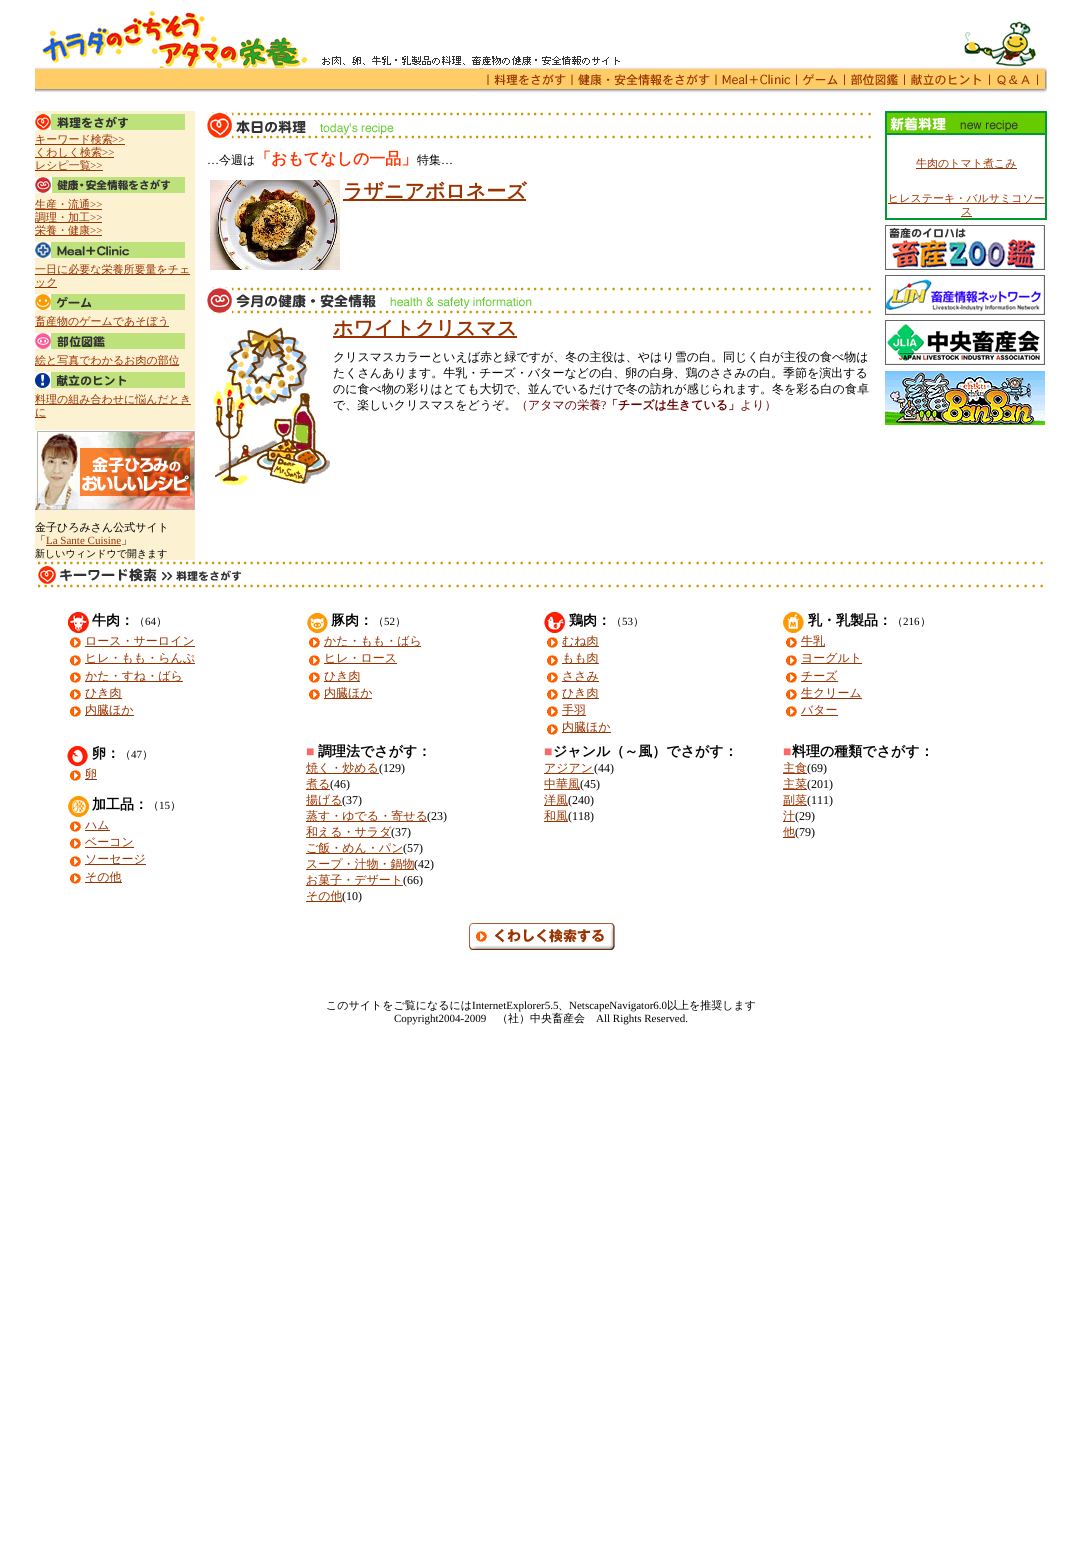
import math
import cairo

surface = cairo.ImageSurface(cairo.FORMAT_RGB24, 1082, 1557)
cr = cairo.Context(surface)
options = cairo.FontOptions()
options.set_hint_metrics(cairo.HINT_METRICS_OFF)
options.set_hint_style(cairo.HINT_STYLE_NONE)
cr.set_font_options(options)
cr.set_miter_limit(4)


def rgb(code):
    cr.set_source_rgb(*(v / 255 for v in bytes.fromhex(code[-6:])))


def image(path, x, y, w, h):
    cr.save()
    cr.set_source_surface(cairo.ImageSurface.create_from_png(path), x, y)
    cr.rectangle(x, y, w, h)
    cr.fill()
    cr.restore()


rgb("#ffffff")
cr.paint()
image("img/1.png", 36, 10, 589, 58)
rgb("#f5f5f5")
cr.rectangle(625, 67, 337, 1)
cr.fill()
image("img/2.png", 962, 21, 85, 47)
image("img/3.png", 35, 68, 442, 24)
image("img/4.png", 477, 68, 570, 25)
rgb("#fcf1d1")
cr.rectangle(35, 111, 160, 449)
cr.fill()
image("img/5.png", 35, 114, 150, 16)
for x, y, w, h, color in [
    (35, 144, 90, 1, "#993300"),
    (35, 157, 79, 1, "#993300"),
    (35, 170, 68, 1, "#993300"),
]:
    rgb(color)
    cr.rectangle(x, y, w, h)
    cr.fill()
image("img/6.png", 35, 177, 150, 16)
for x, y, w, h, color in [
    (35, 209, 67, 1, "#993300"),
    (35, 222, 67, 1, "#993300"),
    (35, 235, 67, 1, "#993300"),
]:
    rgb(color)
    cr.rectangle(x, y, w, h)
    cr.fill()
image("img/7.png", 35, 242, 150, 16)
cr.rectangle(35, 274, 155, 1)
cr.fill()
cr.rectangle(35, 287, 22, 1)
cr.fill()
image("img/8.png", 35, 294, 150, 16)
cr.rectangle(35, 326, 134, 1)
cr.fill()
image("img/9.png", 35, 333, 150, 16)
cr.rectangle(35, 365, 144, 1)
cr.fill()
image("img/10.png", 35, 372, 150, 16)
cr.rectangle(35, 404, 156, 1)
cr.fill()
cr.rectangle(35, 417, 11, 1)
cr.fill()
image("img/11.png", 35, 430, 160, 80)
cr.rectangle(46, 545, 75, 1)
cr.fill()
image("img/12.png", 207, 112, 330, 27)
image("img/13.png", 540, 112, 331, 27)
image("img/14.png", 210, 180, 130, 90)
cr.rectangle(343, 199, 183, 2)
cr.fill()
image("img/15.png", 207, 287, 330, 27)
image("img/13.png", 540, 287, 331, 27)
image("img/16.png", 213, 327, 117, 159)
cr.rectangle(333, 336, 184, 2)
cr.fill()
cr.rectangle(885.5, 111.5, 161, 108)
rgb("#009933")
cr.set_line_width(1)
cr.stroke()
rgb("#66cc00")
cr.rectangle(886.5, 112.5, 159, 21)
cr.fill_preserve()
rgb("#009933")
cr.stroke()
image("img/17.png", 890, 117, 128, 15)
cr.rectangle(886.5, 134.5, 159, 84)
cr.stroke()
for x, y, w, h, color in [
    (916, 168, 101, 1, "#993300"),
    (888, 203, 157, 1, "#993300"),
    (961, 216, 11, 1, "#993300"),
]:
    rgb(color)
    cr.rectangle(x, y, w, h)
    cr.fill()
image("img/18.png", 885, 225, 160, 45)
image("img/19.png", 885, 275, 160, 40)
image("img/20.png", 885, 320, 160, 45)
image("img/21.png", 885, 371, 160, 54)
image("img/22.png", 38, 561, 325, 27)
image("img/23.png", 368, 561, 675, 27)
image("img/24.png", 68, 612, 21, 21)
image("img/25.png", 70, 637, 11, 11)
cr.rectangle(85, 646, 110, 1)
cr.fill()
image("img/25.png", 70, 655, 11, 11)
cr.rectangle(85, 663, 110, 1)
cr.fill()
image("img/25.png", 70, 672, 11, 11)
cr.rectangle(85, 681, 98, 1)
cr.fill()
image("img/25.png", 70, 689, 11, 11)
cr.rectangle(85, 698, 37, 1)
cr.fill()
image("img/25.png", 70, 706, 11, 11)
cr.rectangle(85, 715, 49, 1)
cr.fill()
image("img/26.png", 307, 613, 21, 20)
image("img/25.png", 309, 637, 11, 11)
cr.rectangle(324, 646, 97, 1)
cr.fill()
image("img/25.png", 309, 655, 11, 11)
cr.rectangle(324, 663, 73, 1)
cr.fill()
image("img/25.png", 309, 672, 11, 11)
cr.rectangle(324, 681, 36, 1)
cr.fill()
image("img/25.png", 309, 689, 11, 11)
cr.rectangle(324, 698, 48, 1)
cr.fill()
image("img/27.png", 544, 612, 21, 21)
image("img/25.png", 547, 637, 11, 11)
cr.rectangle(562, 646, 37, 1)
cr.fill()
image("img/25.png", 547, 655, 11, 11)
cr.rectangle(562, 663, 37, 1)
cr.fill()
image("img/25.png", 547, 672, 11, 11)
cr.rectangle(562, 681, 37, 1)
cr.fill()
image("img/25.png", 547, 689, 11, 11)
cr.rectangle(562, 698, 37, 1)
cr.fill()
image("img/25.png", 547, 706, 11, 11)
cr.rectangle(562, 715, 24, 1)
cr.fill()
image("img/25.png", 547, 724, 11, 11)
cr.rectangle(562, 732, 49, 1)
cr.fill()
image("img/28.png", 783, 612, 21, 21)
image("img/25.png", 786, 637, 11, 11)
cr.rectangle(801, 646, 24, 1)
cr.fill()
image("img/25.png", 786, 655, 11, 11)
cr.rectangle(801, 663, 61, 1)
cr.fill()
image("img/25.png", 786, 672, 11, 11)
cr.rectangle(801, 681, 37, 1)
cr.fill()
image("img/25.png", 786, 689, 11, 11)
cr.rectangle(801, 698, 61, 1)
cr.fill()
image("img/25.png", 786, 706, 11, 11)
cr.rectangle(801, 715, 37, 1)
cr.fill()
image("img/29.png", 67, 746, 21, 20)
image("img/25.png", 70, 770, 11, 11)
cr.rectangle(85, 779, 12, 1)
cr.fill()
image("img/30.png", 68, 796, 21, 21)
image("img/25.png", 70, 821, 11, 11)
cr.rectangle(85, 830, 25, 1)
cr.fill()
image("img/25.png", 70, 838, 11, 11)
cr.rectangle(85, 847, 49, 1)
cr.fill()
image("img/25.png", 70, 856, 11, 11)
cr.rectangle(85, 864, 61, 1)
cr.fill()
image("img/25.png", 70, 873, 11, 11)
for x, y, w, h, color in [
    (85, 882, 37, 1, "#993300"),
    (306, 773, 73, 1, "#993300"),
    (306, 789, 24, 1, "#993300"),
    (306, 805, 36, 1, "#993300"),
    (306, 821, 121, 1, "#993300"),
    (306, 837, 85, 1, "#993300"),
    (306, 853, 97, 1, "#993300"),
    (306, 869, 108, 1, "#993300"),
    (306, 885, 97, 1, "#993300"),
    (306, 901, 36, 1, "#993300"),
    (544, 773, 50, 1, "#993300"),
    (544, 789, 36, 1, "#993300"),
    (544, 805, 24, 1, "#993300"),
    (544, 821, 24, 1, "#993300"),
    (783, 773, 24, 1, "#993300"),
    (783, 789, 24, 1, "#993300"),
    (783, 805, 24, 1, "#993300"),
    (783, 821, 12, 1, "#993300"),
    (783, 837, 12, 1, "#993300"),
]:
    rgb(color)
    cr.rectangle(x, y, w, h)
    cr.fill()
image("img/31.png", 469, 923, 146, 27)
cr.select_font_face("WenQuanYi Zen Hei Medium")
cr.set_font_size(11)
cr.move_to(35, 143)
cr.show_text("キーワード検索")
cr.select_font_face("Liberation Serif")
cr.move_to(112, 143)
cr.show_text(">>")
cr.select_font_face("WenQuanYi Zen Hei Medium")
cr.move_to(35, 156)
cr.show_text("くわしく検索")
cr.select_font_face("Liberation Serif")
cr.move_to(102, 156)
cr.show_text(">>")
cr.select_font_face("WenQuanYi Zen Hei Medium")
cr.move_to(35, 169)
cr.show_text("レシピ一覧")
cr.select_font_face("Liberation Serif")
cr.move_to(90, 169)
cr.show_text(">>")
cr.select_font_face("WenQuanYi Zen Hei Medium")
cr.move_to(35, 208)
cr.show_text("生産・流通")
cr.select_font_face("Liberation Serif")
cr.move_to(90, 208)
cr.show_text(">>")
cr.select_font_face("WenQuanYi Zen Hei Medium")
cr.move_to(35, 221)
cr.show_text("調理・加工")
cr.select_font_face("Liberation Serif")
cr.move_to(90, 221)
cr.show_text(">>")
cr.select_font_face("WenQuanYi Zen Hei Medium")
cr.move_to(35, 234)
cr.show_text("栄養・健康")
cr.select_font_face("Liberation Serif")
cr.move_to(90, 234)
cr.show_text(">>")
cr.select_font_face("WenQuanYi Zen Hei Medium")
for x, y, s in [
    (35, 273, "一日に必要な栄養所要量をチェ"),
    (35, 286, "ック"),
    (35, 325, "畜産物のゲームであそぼう"),
    (35, 364, "絵と写真でわかるお肉の部位"),
    (35, 403, "料理の組み合わせに悩んだとき"),
    (35, 416, "に"),
]:
    cr.move_to(x, y)
    cr.show_text(s)
rgb("#000000")
cr.move_to(35, 531)
cr.show_text("金子ひろみさん公式サイト")
cr.move_to(35, 544)
cr.show_text("「")
cr.select_font_face("Liberation Serif")
rgb("#993300")
cr.move_to(46, 544)
cr.show_text("La Sante Cuisine")
cr.select_font_face("WenQuanYi Zen Hei Medium")
rgb("#000000")
cr.move_to(121, 544)
cr.show_text("」")
cr.set_font_size(10)
cr.move_to(35, 557)
cr.show_text("新しいウィンドウで開きます")
cr.select_font_face("Liberation Serif")
cr.set_font_size(12)
cr.move_to(207, 164)
cr.show_text("…")
cr.select_font_face("WenQuanYi Zen Hei Medium")
cr.move_to(219, 164)
cr.show_text("今週は")
cr.select_font_face("WenQuanYi Zen Hei", cairo.FONT_SLANT_NORMAL, cairo.FONT_WEIGHT_BOLD)
cr.set_font_size(16)
rgb("#ff3300")
cr.move_to(255, 164)
cr.show_text("「おもてなしの一品」")
cr.select_font_face("WenQuanYi Zen Hei Medium")
cr.set_font_size(12)
rgb("#000000")
cr.move_to(417, 164)
cr.show_text("特集")
cr.select_font_face("Liberation Serif")
cr.move_to(441, 164)
cr.show_text("…")
cr.select_font_face("WenQuanYi Zen Hei", cairo.FONT_SLANT_NORMAL, cairo.FONT_WEIGHT_BOLD)
cr.set_font_size(20)
rgb("#993300")
cr.move_to(343, 198)
cr.show_text("ラザニアボロネーズ")
cr.move_to(333, 335)
cr.show_text("ホワイトクリスマス")
cr.select_font_face("WenQuanYi Zen Hei Medium")
cr.set_font_size(12)
rgb("#000000")
for x, y, s in [
    (333, 361, "クリスマスカラーといえば赤と緑ですが、冬の主役は、やはり雪の白。同じく白が主役の食べ物は"),
    (333, 377, "たくさんあります。牛乳・チーズ・バターなどの白、卵の白身、鶏のささみの白。季節を演出する"),
    (333, 393, "のに食べ物の彩りはとても大切で、並んでいるだけで冬の訪れが感じられます。冬を彩る白の食卓"),
    (333, 409, "で、楽しいクリスマスをどうぞ。"),
]:
    cr.move_to(x, y)
    cr.show_text(s)
rgb("#660000")
cr.move_to(516, 409)
cr.show_text("（アタマの栄養")
cr.select_font_face("Liberation Serif")
cr.move_to(601, 409)
cr.show_text("?")
cr.select_font_face("WenQuanYi Zen Hei", cairo.FONT_SLANT_NORMAL, cairo.FONT_WEIGHT_BOLD)
cr.move_to(606, 409)
cr.show_text("「チーズは生きている」")
cr.select_font_face("WenQuanYi Zen Hei Medium")
cr.move_to(740, 409)
cr.show_text("より）")
cr.set_font_size(11)
rgb("#993300")
for x, y, s in [
    (916, 167, "牛肉のトマト煮こみ"),
    (888, 202, "ヒレステーキ・バルサミコソー"),
    (961, 215, "ス"),
]:
    cr.move_to(x, y)
    cr.show_text(s)
cr.select_font_face("WenQuanYi Zen Hei", cairo.FONT_SLANT_NORMAL, cairo.FONT_WEIGHT_BOLD)
cr.set_font_size(14)
rgb("#000000")
cr.move_to(92, 625)
cr.show_text("牛肉：")
cr.select_font_face("WenQuanYi Zen Hei Medium")
cr.set_font_size(11)
cr.move_to(134, 625)
cr.show_text("（")
cr.select_font_face("Liberation Serif")
cr.move_to(145, 625)
cr.show_text("64")
cr.select_font_face("WenQuanYi Zen Hei Medium")
cr.move_to(156, 625)
cr.show_text("）")
cr.set_font_size(12)
rgb("#993300")
for x, y, s in [
    (85, 645, "ロース・サーロイン"),
    (85, 662, "ヒレ・もも・らんぷ"),
    (85, 680, "かた・すね・ばら"),
    (85, 697, "ひき肉"),
    (85, 714, "内臓ほか"),
]:
    cr.move_to(x, y)
    cr.show_text(s)
cr.select_font_face("WenQuanYi Zen Hei", cairo.FONT_SLANT_NORMAL, cairo.FONT_WEIGHT_BOLD)
cr.set_font_size(14)
rgb("#000000")
cr.move_to(331, 625)
cr.show_text("豚肉：")
cr.select_font_face("WenQuanYi Zen Hei Medium")
cr.set_font_size(11)
cr.move_to(373, 625)
cr.show_text("（")
cr.select_font_face("Liberation Serif")
cr.move_to(384, 625)
cr.show_text("52")
cr.select_font_face("WenQuanYi Zen Hei Medium")
cr.move_to(395, 625)
cr.show_text("）")
cr.set_font_size(12)
rgb("#993300")
for x, y, s in [
    (324, 645, "かた・もも・ばら"),
    (324, 662, "ヒレ・ロース"),
    (324, 680, "ひき肉"),
    (324, 697, "内臓ほか"),
]:
    cr.move_to(x, y)
    cr.show_text(s)
cr.select_font_face("WenQuanYi Zen Hei", cairo.FONT_SLANT_NORMAL, cairo.FONT_WEIGHT_BOLD)
cr.set_font_size(14)
rgb("#000000")
cr.move_to(569, 625)
cr.show_text("鶏肉：")
cr.select_font_face("WenQuanYi Zen Hei Medium")
cr.set_font_size(11)
cr.move_to(611, 625)
cr.show_text("（")
cr.select_font_face("Liberation Serif")
cr.move_to(622, 625)
cr.show_text("53")
cr.select_font_face("WenQuanYi Zen Hei Medium")
cr.move_to(633, 625)
cr.show_text("）")
cr.set_font_size(12)
rgb("#993300")
for x, y, s in [
    (562, 645, "むね肉"),
    (562, 662, "もも肉"),
    (562, 680, "ささみ"),
    (562, 697, "ひき肉"),
    (562, 714, "手羽"),
    (562, 731, "内臓ほか"),
]:
    cr.move_to(x, y)
    cr.show_text(s)
cr.select_font_face("WenQuanYi Zen Hei", cairo.FONT_SLANT_NORMAL, cairo.FONT_WEIGHT_BOLD)
cr.set_font_size(14)
rgb("#000000")
cr.move_to(808, 625)
cr.show_text("乳・乳製品：")
cr.select_font_face("WenQuanYi Zen Hei Medium")
cr.set_font_size(11)
cr.move_to(892, 625)
cr.show_text("（")
cr.select_font_face("Liberation Serif")
cr.move_to(903, 625)
cr.show_text("216")
cr.select_font_face("WenQuanYi Zen Hei Medium")
cr.move_to(920, 625)
cr.show_text("）")
cr.set_font_size(12)
rgb("#993300")
for x, y, s in [
    (801, 645, "牛乳"),
    (801, 662, "ヨーグルト"),
    (801, 680, "チーズ"),
    (801, 697, "生クリーム"),
    (801, 714, "バター"),
]:
    cr.move_to(x, y)
    cr.show_text(s)
cr.select_font_face("WenQuanYi Zen Hei", cairo.FONT_SLANT_NORMAL, cairo.FONT_WEIGHT_BOLD)
cr.set_font_size(14)
rgb("#000000")
cr.move_to(92, 758)
cr.show_text("卵：")
cr.select_font_face("WenQuanYi Zen Hei Medium")
cr.set_font_size(11)
cr.move_to(120, 758)
cr.show_text("（")
cr.select_font_face("Liberation Serif")
cr.move_to(131, 758)
cr.show_text("47")
cr.select_font_face("WenQuanYi Zen Hei Medium")
cr.move_to(142, 758)
cr.show_text("）")
cr.set_font_size(12)
rgb("#993300")
cr.move_to(85, 778)
cr.show_text("卵")
cr.select_font_face("WenQuanYi Zen Hei", cairo.FONT_SLANT_NORMAL, cairo.FONT_WEIGHT_BOLD)
cr.set_font_size(14)
rgb("#000000")
cr.move_to(92, 809)
cr.show_text("加工品：")
cr.select_font_face("WenQuanYi Zen Hei Medium")
cr.set_font_size(11)
cr.move_to(148, 809)
cr.show_text("（")
cr.select_font_face("Liberation Serif")
cr.move_to(159, 809)
cr.show_text("15")
cr.select_font_face("WenQuanYi Zen Hei Medium")
cr.move_to(170, 809)
cr.show_text("）")
cr.set_font_size(12)
rgb("#993300")
for x, y, s in [
    (85, 829, "ハム"),
    (85, 846, "ベーコン"),
    (85, 863, "ソーセージ"),
    (85, 881, "その他"),
]:
    cr.move_to(x, y)
    cr.show_text(s)
cr.select_font_face("Liberation Serif", cairo.FONT_SLANT_NORMAL, cairo.FONT_WEIGHT_BOLD)
cr.set_font_size(14)
rgb("#ff6666")
cr.move_to(306, 756)
cr.show_text("■")
cr.select_font_face("WenQuanYi Zen Hei", cairo.FONT_SLANT_NORMAL, cairo.FONT_WEIGHT_BOLD)
rgb("#000000")
cr.move_to(318, 756)
cr.show_text("調理法でさがす：")
cr.select_font_face("WenQuanYi Zen Hei Medium")
cr.set_font_size(12)
rgb("#993300")
cr.move_to(306, 772)
cr.show_text("焼く・炒める")
cr.select_font_face("Liberation Serif")
rgb("#000000")
cr.move_to(379, 772)
cr.show_text("(129)")
cr.select_font_face("WenQuanYi Zen Hei Medium")
rgb("#993300")
cr.move_to(306, 788)
cr.show_text("煮る")
cr.select_font_face("Liberation Serif")
rgb("#000000")
cr.move_to(330, 788)
cr.show_text("(46)")
cr.select_font_face("WenQuanYi Zen Hei Medium")
rgb("#993300")
cr.move_to(306, 804)
cr.show_text("揚げる")
cr.select_font_face("Liberation Serif")
rgb("#000000")
cr.move_to(342, 804)
cr.show_text("(37)")
cr.select_font_face("WenQuanYi Zen Hei Medium")
rgb("#993300")
cr.move_to(306, 820)
cr.show_text("蒸す・ゆでる・寄せる")
cr.select_font_face("Liberation Serif")
rgb("#000000")
cr.move_to(427, 820)
cr.show_text("(23)")
cr.select_font_face("WenQuanYi Zen Hei Medium")
rgb("#993300")
cr.move_to(306, 836)
cr.show_text("和える・サラダ")
cr.select_font_face("Liberation Serif")
rgb("#000000")
cr.move_to(391, 836)
cr.show_text("(37)")
cr.select_font_face("WenQuanYi Zen Hei Medium")
rgb("#993300")
cr.move_to(306, 852)
cr.show_text("ご飯・めん・パン")
cr.select_font_face("Liberation Serif")
rgb("#000000")
cr.move_to(403, 852)
cr.show_text("(57)")
cr.select_font_face("WenQuanYi Zen Hei Medium")
rgb("#993300")
cr.move_to(306, 868)
cr.show_text("スープ・汁物・鍋物")
cr.select_font_face("Liberation Serif")
rgb("#000000")
cr.move_to(414, 868)
cr.show_text("(42)")
cr.select_font_face("WenQuanYi Zen Hei Medium")
rgb("#993300")
cr.move_to(306, 884)
cr.show_text("お菓子・デザート")
cr.select_font_face("Liberation Serif")
rgb("#000000")
cr.move_to(403, 884)
cr.show_text("(66)")
cr.select_font_face("WenQuanYi Zen Hei Medium")
rgb("#993300")
cr.move_to(306, 900)
cr.show_text("その他")
cr.select_font_face("Liberation Serif")
rgb("#000000")
cr.move_to(342, 900)
cr.show_text("(10)")
cr.select_font_face("Liberation Serif", cairo.FONT_SLANT_NORMAL, cairo.FONT_WEIGHT_BOLD)
cr.set_font_size(14)
rgb("#ff6666")
cr.move_to(544, 756)
cr.show_text("■")
cr.select_font_face("WenQuanYi Zen Hei", cairo.FONT_SLANT_NORMAL, cairo.FONT_WEIGHT_BOLD)
rgb("#000000")
cr.move_to(553, 756)
cr.show_text("ジャンル（～風）でさがす：")
cr.select_font_face("WenQuanYi Zen Hei Medium")
cr.set_font_size(12)
rgb("#993300")
cr.move_to(544, 772)
cr.show_text("アジアン")
cr.select_font_face("Liberation Serif")
rgb("#000000")
cr.move_to(594, 772)
cr.show_text("(44)")
cr.select_font_face("WenQuanYi Zen Hei Medium")
rgb("#993300")
cr.move_to(544, 788)
cr.show_text("中華風")
cr.select_font_face("Liberation Serif")
rgb("#000000")
cr.move_to(580, 788)
cr.show_text("(45)")
cr.select_font_face("WenQuanYi Zen Hei Medium")
rgb("#993300")
cr.move_to(544, 804)
cr.show_text("洋風")
cr.select_font_face("Liberation Serif")
rgb("#000000")
cr.move_to(568, 804)
cr.show_text("(240)")
cr.select_font_face("WenQuanYi Zen Hei Medium")
rgb("#993300")
cr.move_to(544, 820)
cr.show_text("和風")
cr.select_font_face("Liberation Serif")
rgb("#000000")
cr.move_to(568, 820)
cr.show_text("(118)")
cr.select_font_face("Liberation Serif", cairo.FONT_SLANT_NORMAL, cairo.FONT_WEIGHT_BOLD)
cr.set_font_size(14)
rgb("#ff6666")
cr.move_to(783, 756)
cr.show_text("■")
cr.select_font_face("WenQuanYi Zen Hei", cairo.FONT_SLANT_NORMAL, cairo.FONT_WEIGHT_BOLD)
rgb("#000000")
cr.move_to(792, 756)
cr.show_text("料理の種類でさがす：")
cr.select_font_face("WenQuanYi Zen Hei Medium")
cr.set_font_size(12)
rgb("#993300")
cr.move_to(783, 772)
cr.show_text("主食")
cr.select_font_face("Liberation Serif")
rgb("#000000")
cr.move_to(807, 772)
cr.show_text("(69)")
cr.select_font_face("WenQuanYi Zen Hei Medium")
rgb("#993300")
cr.move_to(783, 788)
cr.show_text("主菜")
cr.select_font_face("Liberation Serif")
rgb("#000000")
cr.move_to(807, 788)
cr.show_text("(201)")
cr.select_font_face("WenQuanYi Zen Hei Medium")
rgb("#993300")
cr.move_to(783, 804)
cr.show_text("副菜")
cr.select_font_face("Liberation Serif")
rgb("#000000")
cr.move_to(807, 804)
cr.show_text("(111)")
cr.select_font_face("WenQuanYi Zen Hei Medium")
rgb("#993300")
cr.move_to(783, 820)
cr.show_text("汁")
cr.select_font_face("Liberation Serif")
rgb("#000000")
cr.move_to(795, 820)
cr.show_text("(29)")
cr.select_font_face("WenQuanYi Zen Hei Medium")
rgb("#993300")
cr.move_to(783, 836)
cr.show_text("他")
cr.select_font_face("Liberation Serif")
rgb("#000000")
cr.move_to(795, 836)
cr.show_text("(79)")
cr.select_font_face("WenQuanYi Zen Hei Medium")
cr.set_font_size(11)
cr.move_to(326, 1009)
cr.show_text("このサイトをご覧になるには")
cr.select_font_face("Liberation Serif")
cr.move_to(472, 1009)
cr.show_text("InternetExplorer5.5")
cr.select_font_face("WenQuanYi Zen Hei Medium")
cr.move_to(558, 1009)
cr.show_text("、")
cr.select_font_face("Liberation Serif")
cr.move_to(569, 1009)
cr.show_text("NetscapeNavigator6.0")
cr.select_font_face("WenQuanYi Zen Hei Medium")
cr.move_to(667, 1009)
cr.show_text("以上を推奨します")
cr.select_font_face("Liberation Serif")
cr.move_to(394, 1022)
cr.show_text("Copyright2004-2009")
cr.select_font_face("WenQuanYi Zen Hei Medium")
cr.move_to(497, 1022)
cr.show_text("（社）中央畜産会")
cr.select_font_face("Liberation Serif")
cr.move_to(596, 1022)
cr.show_text("All Rights Reserved.")
surface.write_to_png("page.png")
